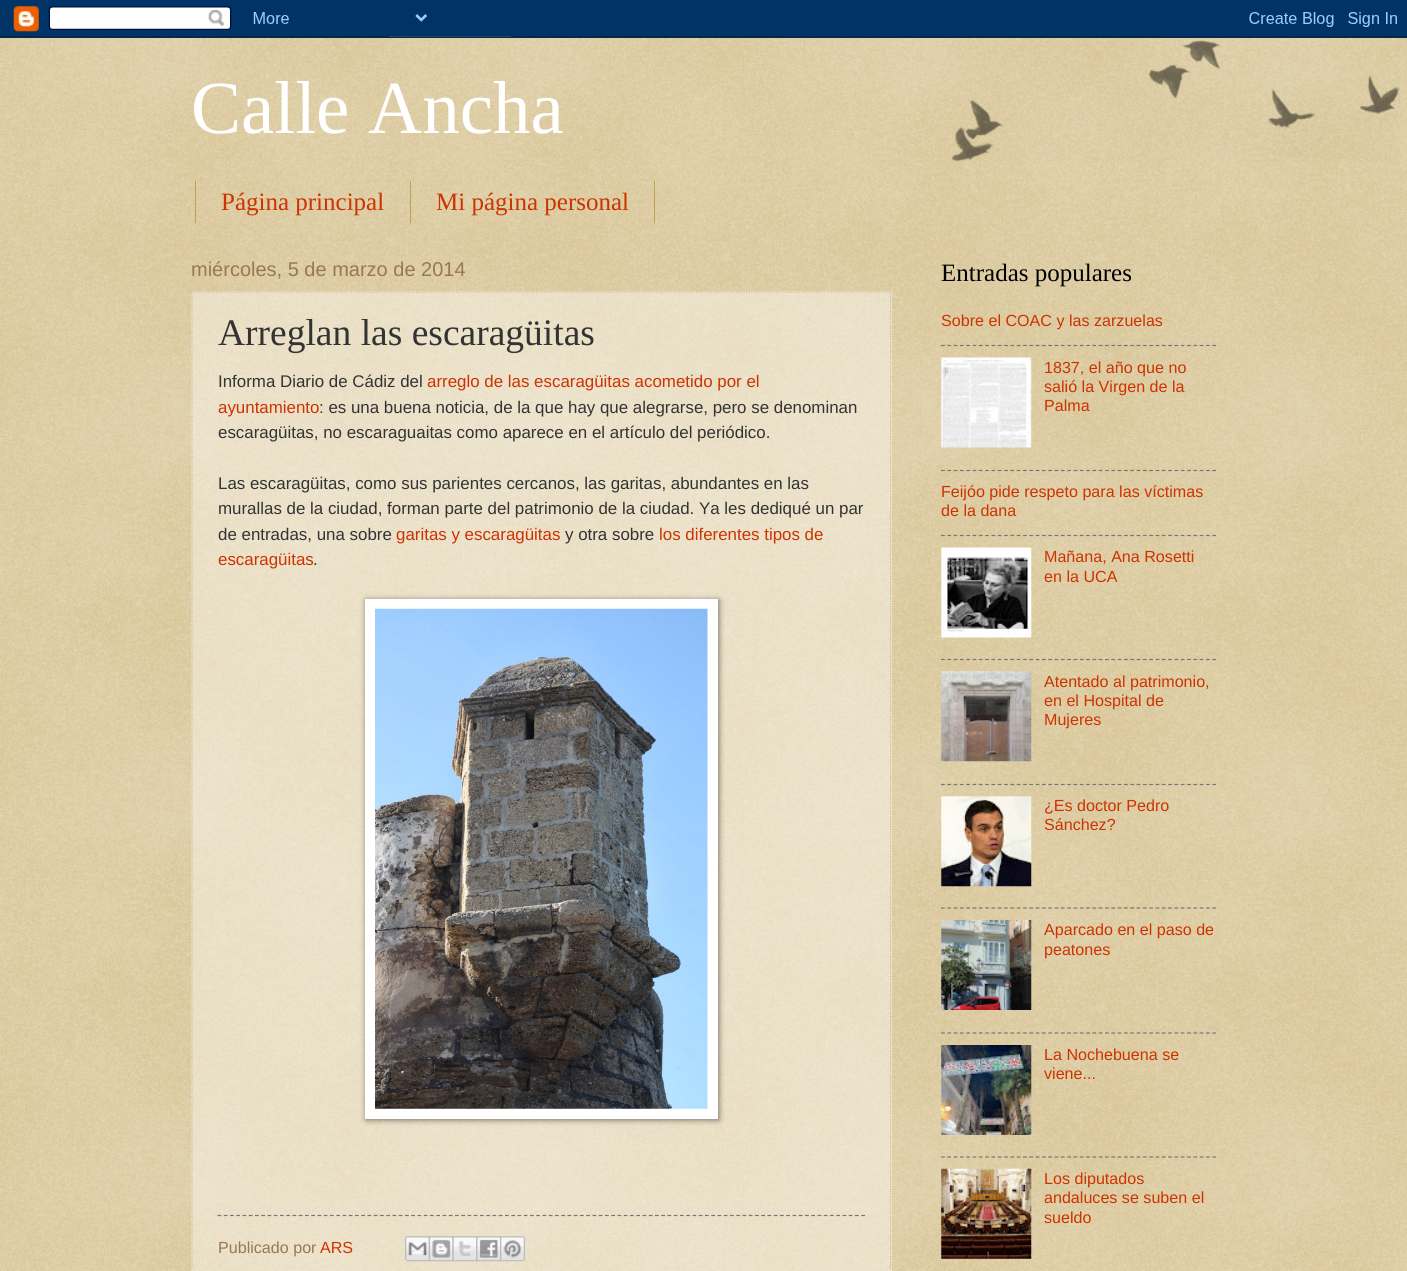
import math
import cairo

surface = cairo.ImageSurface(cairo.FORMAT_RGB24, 1407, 1271)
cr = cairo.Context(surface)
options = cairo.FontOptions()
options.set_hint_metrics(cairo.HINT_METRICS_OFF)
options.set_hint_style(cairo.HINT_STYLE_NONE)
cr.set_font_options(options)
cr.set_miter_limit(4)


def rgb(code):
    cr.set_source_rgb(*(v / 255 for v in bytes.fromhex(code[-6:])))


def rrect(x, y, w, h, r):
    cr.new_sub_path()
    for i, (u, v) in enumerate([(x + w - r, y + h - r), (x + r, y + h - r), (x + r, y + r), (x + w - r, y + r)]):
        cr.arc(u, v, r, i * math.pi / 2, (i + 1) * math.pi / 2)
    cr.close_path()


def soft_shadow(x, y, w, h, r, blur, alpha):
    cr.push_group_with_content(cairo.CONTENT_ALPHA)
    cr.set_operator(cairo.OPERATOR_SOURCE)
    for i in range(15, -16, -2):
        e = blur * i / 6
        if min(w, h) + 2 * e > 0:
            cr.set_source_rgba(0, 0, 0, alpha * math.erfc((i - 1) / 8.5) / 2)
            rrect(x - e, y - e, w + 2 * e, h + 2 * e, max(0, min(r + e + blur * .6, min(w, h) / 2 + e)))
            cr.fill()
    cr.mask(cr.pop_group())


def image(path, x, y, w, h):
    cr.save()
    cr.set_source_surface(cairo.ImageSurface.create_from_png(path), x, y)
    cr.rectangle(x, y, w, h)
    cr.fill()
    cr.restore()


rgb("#c0a154")
cr.paint()
image("img/1.png", 0, 36, 1407, 1235)
image("img/2.png", 0, 0, 1407, 38)
image("img/3.png", 951, 40, 450, 122)
rgb("#c0a154")
cr.rectangle(410, 181, 1, 42)
cr.rectangle(195, 181, 1, 42)
cr.rectangle(654, 181, 1, 42)
cr.fill()
cr.set_source_rgba(1, 1, 1, 0.4)
cr.rectangle(191, 291, 701, 980)
cr.fill()
cr.new_path()
cr.move_to(191, 292)
cr.line_to(891, 292)
rgb("#ccbb99")
cr.set_line_width(1.2)
cr.set_dash([1.25, 1.25])
cr.stroke()
cr.new_path()
cr.move_to(890.5, 291)
cr.line_to(890.5, 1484)
cr.stroke()
cr.new_path()
cr.move_to(192, 291)
cr.line_to(192, 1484)
cr.stroke()
rgb("#000000")
soft_shadow(366, 600, 353, 520, 0, 3, 0.5)
rgb("#ffffff")
cr.rectangle(365, 599, 353, 520)
cr.fill()
image("img/4.png", 375, 608, 333, 501)
cr.new_path()
cr.move_to(217.5, 1215.5)
cr.line_to(865, 1215.5)
rgb("#777777")
cr.set_dash([3.75, 2.5])
cr.stroke()
image("img/5.png", 405, 1236, 25, 26)
image("img/6.png", 428, 1236, 26, 26)
image("img/7.png", 452, 1236, 26, 26)
image("img/8.png", 476, 1236, 26, 26)
image("img/9.png", 500, 1236, 25, 26)
cr.new_path()
cr.move_to(941, 345.5)
cr.line_to(1216, 345.5)
cr.set_dash([3.75, 2.56])
cr.stroke()
image("img/10.png", 941, 357, 91, 91)
cr.new_path()
cr.move_to(941, 470.5)
cr.line_to(1216, 470.5)
cr.stroke()
cr.new_path()
cr.move_to(941, 535.5)
cr.line_to(1216, 535.5)
cr.stroke()
image("img/11.png", 941, 547, 91, 91)
cr.new_path()
cr.move_to(941, 659.5)
cr.line_to(1216, 659.5)
cr.stroke()
image("img/12.png", 941, 671, 91, 91)
cr.new_path()
cr.move_to(941, 784.5)
cr.line_to(1216, 784.5)
cr.stroke()
image("img/13.png", 941, 796, 91, 91)
cr.new_path()
cr.move_to(941, 908)
cr.line_to(1216, 908)
cr.stroke()
image("img/14.png", 941, 920, 91, 90)
cr.new_path()
cr.move_to(941, 1033)
cr.line_to(1216, 1033)
cr.stroke()
image("img/15.png", 941, 1045, 91, 90)
cr.new_path()
cr.move_to(941, 1157)
cr.line_to(1216, 1157)
cr.stroke()
image("img/16.png", 941, 1168, 91, 91)
cr.select_font_face("Liberation Serif")
cr.set_font_size(75)
rgb("#ffffff")
cr.move_to(191, 133)
cr.show_text("Calle Ancha")
cr.set_font_size(25)
rgb("#cc3300")
cr.move_to(221, 210)
cr.show_text("Página principal")
cr.move_to(436, 210)
cr.show_text("Mi página personal")
cr.select_font_face("Liberation Sans")
cr.set_font_size(20)
rgb("#997755")
cr.move_to(191, 276)
cr.show_text("miércoles, 5 de marzo de 2014")
cr.select_font_face("Liberation Serif")
cr.set_font_size(37.5)
rgb("#333333")
cr.move_to(218, 345)
cr.show_text("Arreglan las escaragüitas")
cr.select_font_face("Liberation Sans")
cr.set_font_size(16.9)
cr.move_to(218, 387)
cr.show_text("Informa Diario de Cádiz del")
rgb("#cc3300")
cr.move_to(427, 387)
cr.show_text("arreglo de las escaragüitas acometido por el")
cr.move_to(218, 413)
cr.show_text("ayuntamiento")
rgb("#333333")
for x, y, s in [
    (319, 413, ": es una buena noticia, de la que hay que alegrarse, pero se denominan"),
    (218, 438, "escaragüitas, no escaraguaitas como aparece en el artículo del periódico."),
    (218, 489, "Las escaragüitas, como sus parientes cercanos, las garitas, abundantes en las"),
    (218, 514, "murallas de la ciudad, forman parte del patrimonio de la ciudad. Ya les dediqué un par"),
    (218, 540, "de entradas, una sobre"),
]:
    cr.move_to(x, y)
    cr.show_text(s)
rgb("#cc3300")
cr.move_to(396, 540)
cr.show_text("garitas y escaragüitas")
rgb("#333333")
cr.move_to(565, 540)
cr.show_text("y otra sobre")
rgb("#cc3300")
cr.move_to(659, 540)
cr.show_text("los diferentes tipos de")
cr.move_to(218, 565)
cr.show_text("escaragüitas")
rgb("#333333")
cr.move_to(313, 565)
cr.show_text(".")
cr.set_font_size(16.1)
rgb("#997755")
cr.move_to(218, 1253)
cr.show_text("Publicado por")
rgb("#cc3300")
cr.move_to(320, 1253)
cr.show_text("ARS")
cr.select_font_face("Liberation Serif")
cr.set_font_size(25)
rgb("#000000")
cr.move_to(941, 281)
cr.show_text("Entradas populares")
cr.select_font_face("Liberation Sans")
cr.set_font_size(16.1)
rgb("#cc3300")
for x, y, s in [
    (941, 326, "Sobre el COAC y las zarzuelas"),
    (1044, 373, "1837, el año que no"),
    (1044, 392, "salió la Virgen de la"),
    (1044, 411, "Palma"),
    (941, 497, "Feijóo pide respeto para las víctimas"),
    (941, 516, "de la dana"),
    (1044, 562, "Mañana, Ana Rosetti"),
    (1044, 582, "en la UCA"),
    (1044, 687, "Atentado al patrimonio,"),
    (1044, 706, "en el Hospital de"),
    (1044, 725, "Mujeres"),
    (1044, 811, "¿Es doctor Pedro"),
    (1044, 830, "Sánchez?"),
    (1044, 935, "Aparcado en el paso de"),
    (1044, 955, "peatones"),
    (1044, 1060, "La Nochebuena se"),
    (1044, 1079, "viene..."),
    (1044, 1184, "Los diputados"),
    (1044, 1203, "andaluces se suben el"),
    (1044, 1223, "sueldo"),
]:
    cr.move_to(x, y)
    cr.show_text(s)
surface.write_to_png("page.png")
